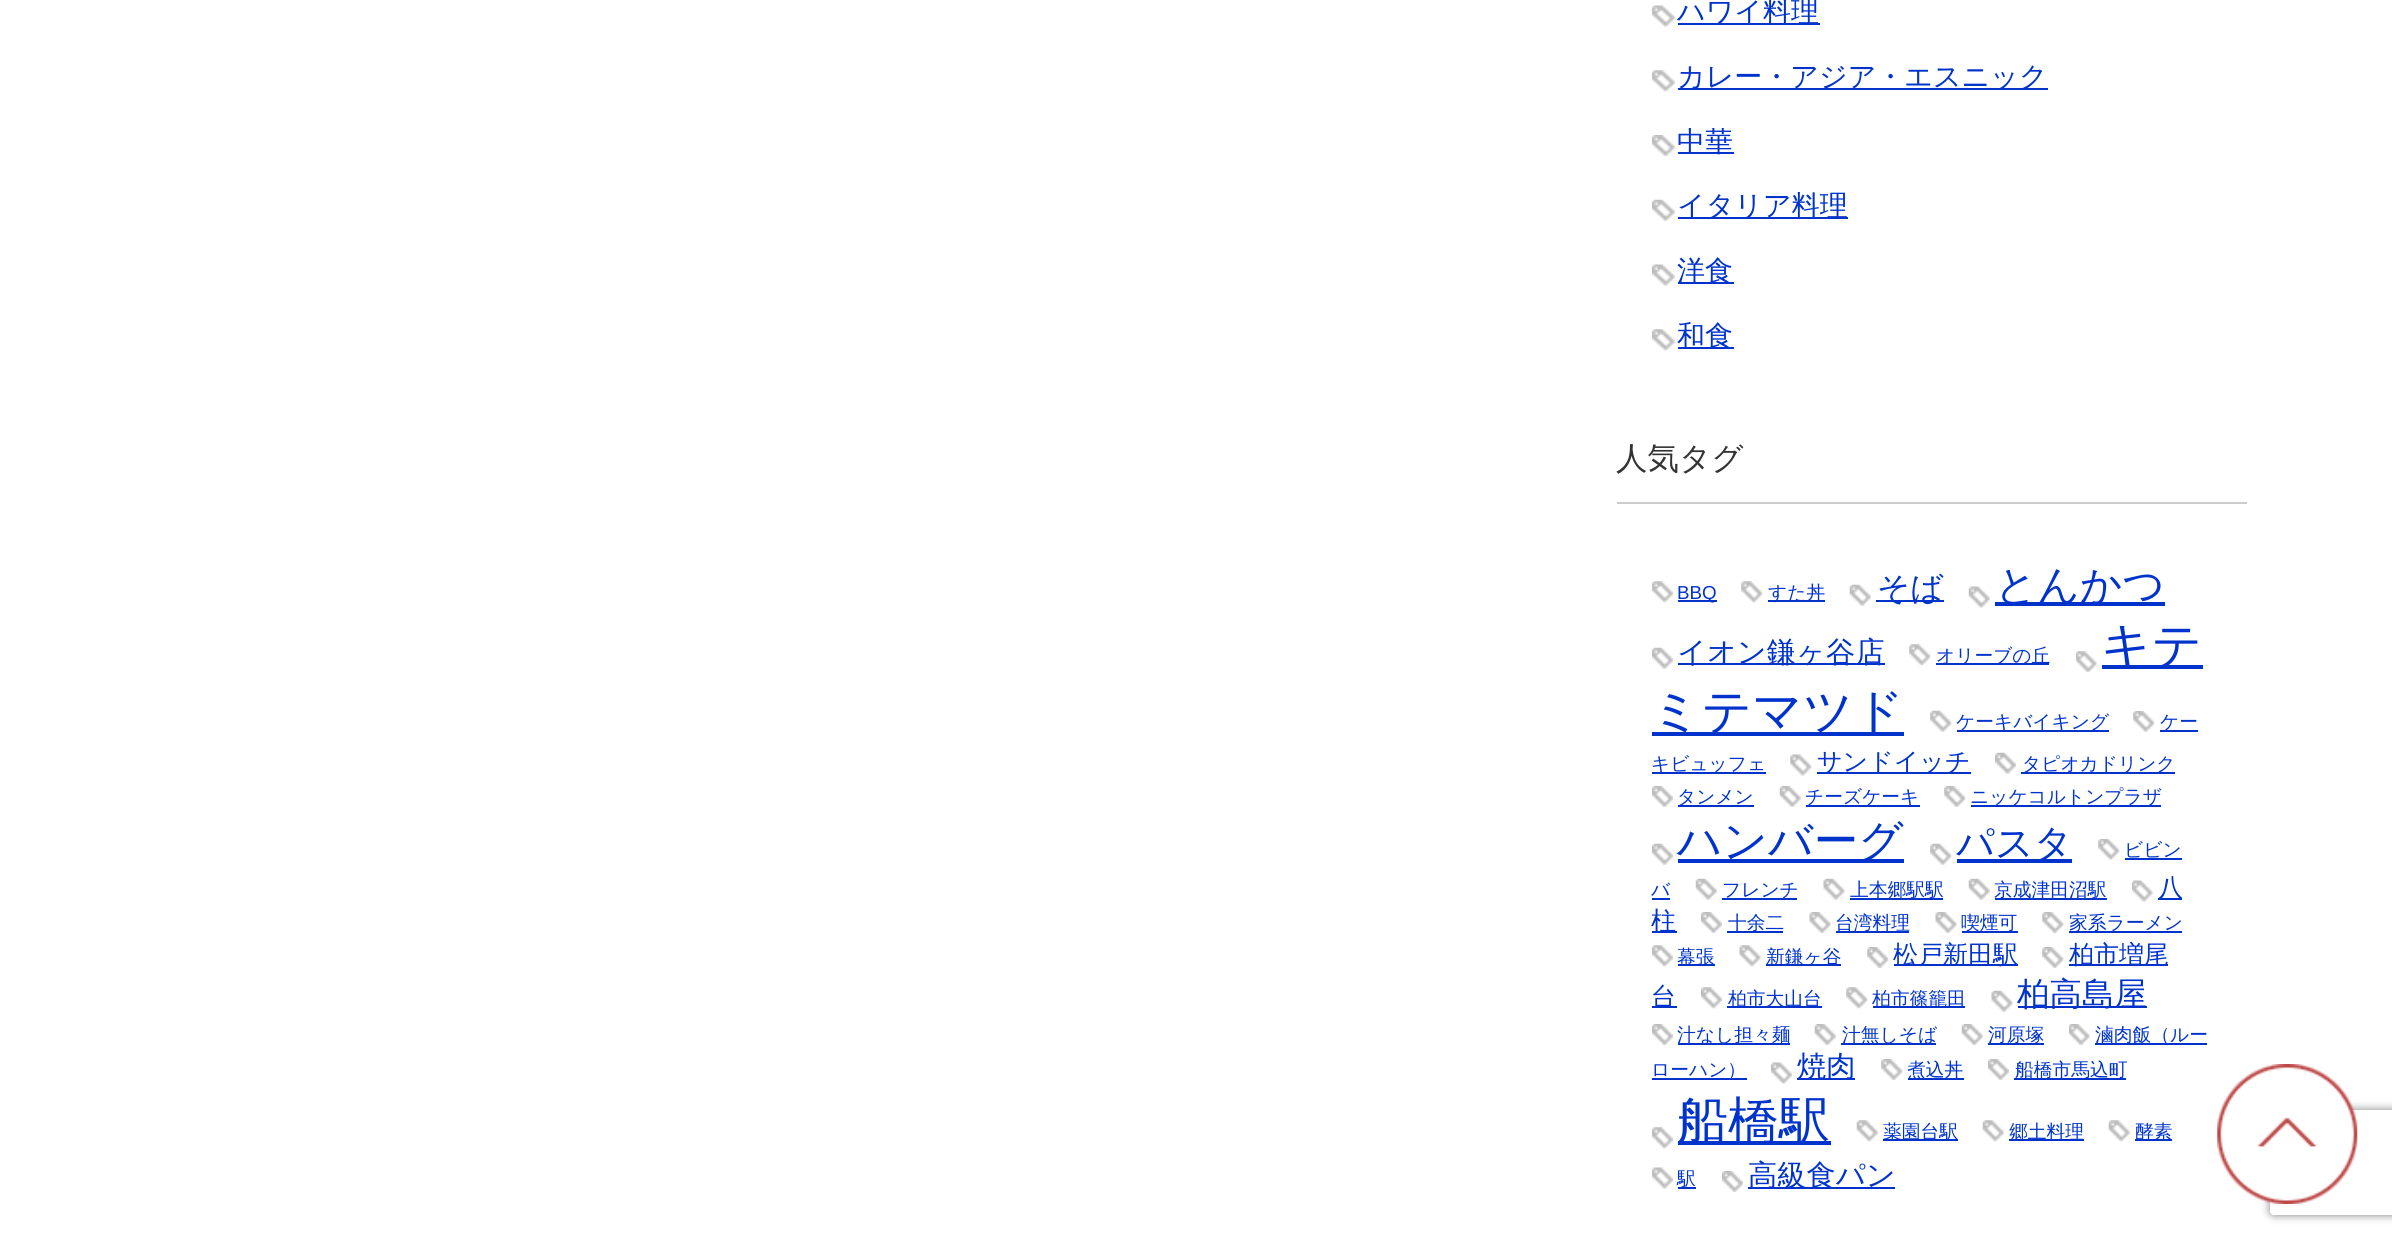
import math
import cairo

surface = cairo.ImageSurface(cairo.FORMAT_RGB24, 2392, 1239)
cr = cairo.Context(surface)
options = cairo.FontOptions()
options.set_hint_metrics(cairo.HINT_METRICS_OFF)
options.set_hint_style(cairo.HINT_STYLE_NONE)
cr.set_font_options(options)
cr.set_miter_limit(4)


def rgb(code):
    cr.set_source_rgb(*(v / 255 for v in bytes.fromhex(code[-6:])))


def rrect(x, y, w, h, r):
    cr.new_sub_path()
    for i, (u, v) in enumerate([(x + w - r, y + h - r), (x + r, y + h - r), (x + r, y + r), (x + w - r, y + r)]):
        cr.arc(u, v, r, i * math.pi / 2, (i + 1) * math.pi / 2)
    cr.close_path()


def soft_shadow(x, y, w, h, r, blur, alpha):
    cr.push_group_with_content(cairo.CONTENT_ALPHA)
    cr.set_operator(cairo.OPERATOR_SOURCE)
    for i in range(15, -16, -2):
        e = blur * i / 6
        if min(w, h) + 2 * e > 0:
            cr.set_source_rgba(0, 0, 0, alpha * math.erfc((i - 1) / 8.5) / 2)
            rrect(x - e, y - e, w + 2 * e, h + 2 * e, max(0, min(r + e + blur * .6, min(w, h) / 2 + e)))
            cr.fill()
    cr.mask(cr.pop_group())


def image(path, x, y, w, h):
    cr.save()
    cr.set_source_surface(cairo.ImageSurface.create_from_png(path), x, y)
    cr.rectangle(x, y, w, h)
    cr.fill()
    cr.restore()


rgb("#ffffff")
cr.paint()
image("img/1.png", 1652, 5, 23, 22)
rgb("#0033cc")
cr.rectangle(1678, 23, 142, 2)
cr.fill()
image("img/2.png", 1652, 70, 23, 22)
cr.rectangle(1678, 88, 370, 2)
cr.fill()
image("img/3.png", 1652, 135, 23, 21)
cr.rectangle(1678, 152, 56, 2)
cr.fill()
image("img/4.png", 1652, 199, 23, 22)
cr.rectangle(1678, 217, 170, 2)
cr.fill()
image("img/1.png", 1652, 264, 23, 22)
cr.rectangle(1678, 282, 56, 2)
cr.fill()
image("img/2.png", 1652, 329, 23, 22)
cr.rectangle(1678, 347, 56, 2)
cr.fill()
rgb("#cccccc")
cr.rectangle(1617, 502, 630, 2)
cr.fill()
image("img/5.png", 1652, 581, 21, 22)
rgb("#0033cc")
cr.rectangle(1678, 600, 39, 2)
cr.fill()
image("img/6.png", 1741, 581, 22, 22)
cr.rectangle(1768, 600, 57, 2)
cr.fill()
image("img/7.png", 1849, 584, 22, 22)
cr.rectangle(1876, 600, 68, 2)
cr.fill()
image("img/8.png", 1968, 586, 22, 22)
cr.rectangle(1995, 602, 170, 4)
cr.fill()
image("img/9.png", 1652, 647, 21, 22)
cr.rectangle(1678, 663, 207, 2)
cr.fill()
image("img/6.png", 1909, 644, 22, 22)
cr.rectangle(1936, 663, 113, 2)
cr.fill()
image("img/10.png", 2076, 651, 21, 21)
cr.rectangle(2102, 665, 101, 4)
cr.fill()
cr.rectangle(1652, 732, 252, 4)
cr.fill()
image("img/11.png", 1930, 710, 22, 22)
cr.rectangle(1957, 730, 152, 2)
cr.fill()
image("img/12.png", 2133, 711, 22, 21)
cr.rectangle(2160, 730, 38, 2)
cr.fill()
cr.rectangle(1652, 772, 114, 2)
cr.fill()
image("img/13.png", 1790, 754, 22, 22)
cr.rectangle(1817, 772, 154, 2)
cr.fill()
image("img/9.png", 1995, 752, 21, 22)
cr.rectangle(2021, 772, 154, 2)
cr.fill()
image("img/14.png", 1652, 786, 21, 21)
cr.rectangle(1678, 805, 76, 2)
cr.fill()
image("img/15.png", 1779, 786, 22, 21)
cr.rectangle(1806, 805, 114, 2)
cr.fill()
image("img/16.png", 1944, 786, 22, 21)
cr.rectangle(1971, 805, 190, 2)
cr.fill()
image("img/9.png", 1652, 843, 21, 22)
cr.rectangle(1678, 859, 226, 4)
cr.fill()
image("img/11.png", 1930, 843, 22, 22)
cr.rectangle(1957, 859, 115, 4)
cr.fill()
image("img/17.png", 2098, 839, 22, 21)
cr.rectangle(2125, 858, 57, 2)
cr.fill()
cr.rectangle(1652, 898, 18, 2)
cr.fill()
image("img/7.png", 1695, 878, 22, 22)
cr.rectangle(1722, 898, 75, 2)
cr.fill()
image("img/18.png", 1823, 878, 22, 22)
cr.rectangle(1850, 898, 93, 2)
cr.fill()
image("img/19.png", 1968, 878, 22, 22)
cr.rectangle(1995, 898, 112, 2)
cr.fill()
image("img/20.png", 2132, 880, 21, 22)
cr.rectangle(2158, 898, 24, 2)
cr.fill()
cr.rectangle(1652, 931, 25, 2)
cr.fill()
image("img/14.png", 1701, 912, 21, 21)
cr.rectangle(1727, 931, 56, 2)
cr.fill()
image("img/21.png", 1809, 912, 22, 21)
cr.rectangle(1836, 931, 73, 2)
cr.fill()
image("img/22.png", 1935, 912, 22, 21)
cr.rectangle(1962, 931, 56, 2)
cr.fill()
image("img/23.png", 2042, 912, 22, 21)
cr.rectangle(2069, 931, 113, 2)
cr.fill()
image("img/5.png", 1652, 945, 21, 22)
cr.rectangle(1678, 964, 37, 2)
cr.fill()
image("img/24.png", 1739, 945, 22, 22)
cr.rectangle(1766, 964, 75, 2)
cr.fill()
image("img/16.png", 1867, 947, 22, 21)
cr.rectangle(1894, 964, 124, 2)
cr.fill()
image("img/23.png", 2042, 947, 22, 21)
cr.rectangle(2069, 964, 99, 2)
cr.fill()
cr.rectangle(1652, 1006, 25, 2)
cr.fill()
image("img/5.png", 1701, 987, 21, 22)
cr.rectangle(1727, 1006, 95, 2)
cr.fill()
image("img/6.png", 1846, 987, 22, 22)
cr.rectangle(1873, 1006, 92, 2)
cr.fill()
image("img/25.png", 1991, 990, 22, 22)
cr.rectangle(2018, 1006, 129, 2)
cr.fill()
image("img/14.png", 1652, 1024, 21, 21)
cr.rectangle(1678, 1043, 112, 2)
cr.fill()
image("img/15.png", 1814, 1024, 22, 21)
cr.rectangle(1841, 1043, 95, 2)
cr.fill()
image("img/26.png", 1961, 1024, 22, 21)
cr.rectangle(1988, 1043, 56, 2)
cr.fill()
image("img/27.png", 2069, 1024, 21, 21)
cr.rectangle(2095, 1043, 112, 2)
cr.fill()
cr.rectangle(1652, 1078, 95, 2)
cr.fill()
image("img/28.png", 1771, 1062, 21, 22)
cr.rectangle(1797, 1078, 58, 2)
cr.fill()
image("img/16.png", 1881, 1059, 22, 21)
cr.rectangle(1908, 1078, 56, 2)
cr.fill()
image("img/14.png", 1988, 1059, 21, 21)
cr.rectangle(2014, 1078, 112, 2)
cr.fill()
image("img/5.png", 1652, 1127, 21, 22)
cr.rectangle(1678, 1141, 153, 4)
cr.fill()
image("img/29.png", 1856, 1120, 22, 22)
cr.rectangle(1883, 1139, 75, 2)
cr.fill()
image("img/29.png", 1982, 1120, 22, 22)
cr.rectangle(2009, 1139, 75, 2)
cr.fill()
image("img/30.png", 2108, 1120, 22, 22)
cr.rectangle(2135, 1139, 37, 2)
cr.fill()
image("img/31.png", 1652, 1167, 21, 22)
cr.rectangle(1678, 1187, 18, 2)
cr.fill()
image("img/14.png", 1722, 1171, 21, 21)
cr.rectangle(1748, 1187, 147, 2)
cr.fill()
cr.save()
cr.set_fill_rule(cairo.FILL_RULE_EVEN_ODD)
cr.new_path()
cr.move_to(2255, 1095)
cr.line_to(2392, 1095)
cr.line_to(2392, 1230)
cr.line_to(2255, 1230)
cr.close_path()
cr.move_to(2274, 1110)
cr.line_to(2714, 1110)
cr.curve_to(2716, 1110, 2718, 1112, 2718, 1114)
cr.line_to(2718, 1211)
cr.curve_to(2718, 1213, 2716, 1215, 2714, 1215)
cr.line_to(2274, 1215)
cr.curve_to(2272, 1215, 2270, 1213, 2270, 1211)
cr.line_to(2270, 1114)
cr.curve_to(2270, 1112, 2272, 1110, 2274, 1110)
cr.close_path()
cr.clip()
rgb("#808080")
soft_shadow(2270, 1110, 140, 105, 4, 4.5, 1)
cr.restore()
image("img/32.png", 2217, 1064, 141, 140)
cr.select_font_face("WenQuanYi Zen Hei Medium")
cr.set_font_size(28)
for x, y, s in [
    (1677, 21, "ハワイ料理"),
    (1677, 86, "カレー・アジア・エスニック"),
    (1677, 151, "中華"),
    (1677, 215, "イタリア料理"),
    (1677, 280, "洋食"),
    (1677, 345, "和食"),
]:
    cr.move_to(x, y)
    cr.show_text(s)
cr.set_font_size(31.5)
rgb("#333333")
cr.move_to(1616, 469)
cr.show_text("人気タグ")
cr.select_font_face("Liberation Sans")
cr.set_font_size(18.75)
rgb("#0033cc")
cr.move_to(1677, 599)
cr.show_text("BBQ")
cr.select_font_face("WenQuanYi Zen Hei Medium")
cr.move_to(1768, 599)
cr.show_text("すた丼")
cr.set_font_size(32.5)
cr.move_to(1877, 599)
cr.show_text("そば")
cr.set_font_size(41.5)
cr.move_to(1995, 599)
cr.show_text("とんかつ")
cr.set_font_size(29.25)
cr.move_to(1677, 662)
cr.show_text("イオン鎌ヶ谷店")
cr.set_font_size(18.75)
cr.move_to(1936, 662)
cr.show_text("オリーブの丘")
cr.set_font_size(49.5)
cr.move_to(2101, 662)
cr.show_text("キテ")
cr.move_to(1651, 728)
cr.show_text("ミテマツド")
cr.set_font_size(18.75)
for x, y, s in [
    (1956, 728, "ケーキバイキング"),
    (2160, 728, "ケー"),
    (1651, 770, "キビュッフェ"),
]:
    cr.move_to(x, y)
    cr.show_text(s)
cr.set_font_size(25)
cr.move_to(1817, 770)
cr.show_text("サンドイッチ")
cr.set_font_size(18.75)
for x, y, s in [
    (2022, 770, "タピオカドリンク"),
    (1677, 803, "タンメン"),
    (1805, 803, "チーズケーキ"),
    (1970, 803, "ニッケコルトンプラザ"),
]:
    cr.move_to(x, y)
    cr.show_text(s)
cr.set_font_size(44.5)
cr.move_to(1677, 856)
cr.show_text("ハンバーグ")
cr.set_font_size(38)
cr.move_to(1956, 856)
cr.show_text("パスタ")
cr.set_font_size(18.75)
for x, y, s in [
    (2124, 856, "ビビン"),
    (1651, 896, "バ"),
    (1722, 896, "フレンチ"),
    (1850, 896, "上本郷駅駅"),
    (1994, 896, "京成津田沼駅"),
]:
    cr.move_to(x, y)
    cr.show_text(s)
cr.set_font_size(25)
cr.move_to(2158, 896)
cr.show_text("八")
cr.move_to(1651, 929)
cr.show_text("柱")
cr.set_font_size(18.75)
for x, y, s in [
    (1728, 929, "十余二"),
    (1835, 929, "台湾料理"),
    (1961, 929, "喫煙可"),
    (2069, 929, "家系ラーメン"),
    (1677, 963, "幕張"),
    (1766, 963, "新鎌ヶ谷"),
]:
    cr.move_to(x, y)
    cr.show_text(s)
cr.set_font_size(25)
for x, y, s in [
    (1893, 963, "松戸新田駅"),
    (2069, 963, "柏市増尾"),
    (1651, 1005, "台"),
]:
    cr.move_to(x, y)
    cr.show_text(s)
cr.set_font_size(18.75)
cr.move_to(1728, 1005)
cr.show_text("柏市大山台")
cr.move_to(1872, 1005)
cr.show_text("柏市篠籠田")
cr.set_font_size(32.5)
cr.move_to(2017, 1005)
cr.show_text("柏高島屋")
cr.set_font_size(18.75)
for x, y, s in [
    (1677, 1041, "汁なし担々麺"),
    (1842, 1041, "汁無しそば"),
    (1988, 1041, "河原塚"),
    (2095, 1041, "滷肉飯（ルー"),
    (1651, 1076, "ローハン）"),
]:
    cr.move_to(x, y)
    cr.show_text(s)
cr.set_font_size(29.25)
cr.move_to(1797, 1076)
cr.show_text("焼肉")
cr.set_font_size(18.75)
cr.move_to(1907, 1076)
cr.show_text("煮込丼")
cr.move_to(2015, 1076)
cr.show_text("船橋市馬込町")
cr.set_font_size(51)
cr.move_to(1677, 1138)
cr.show_text("船橋駅")
cr.set_font_size(18.75)
for x, y, s in [
    (1883, 1138, "薬園台駅"),
    (2009, 1138, "郷土料理"),
    (2135, 1138, "酵素"),
    (1677, 1185, "駅"),
]:
    cr.move_to(x, y)
    cr.show_text(s)
cr.set_font_size(29.25)
cr.move_to(1748, 1185)
cr.show_text("高級食パン")
surface.write_to_png("page.png")
